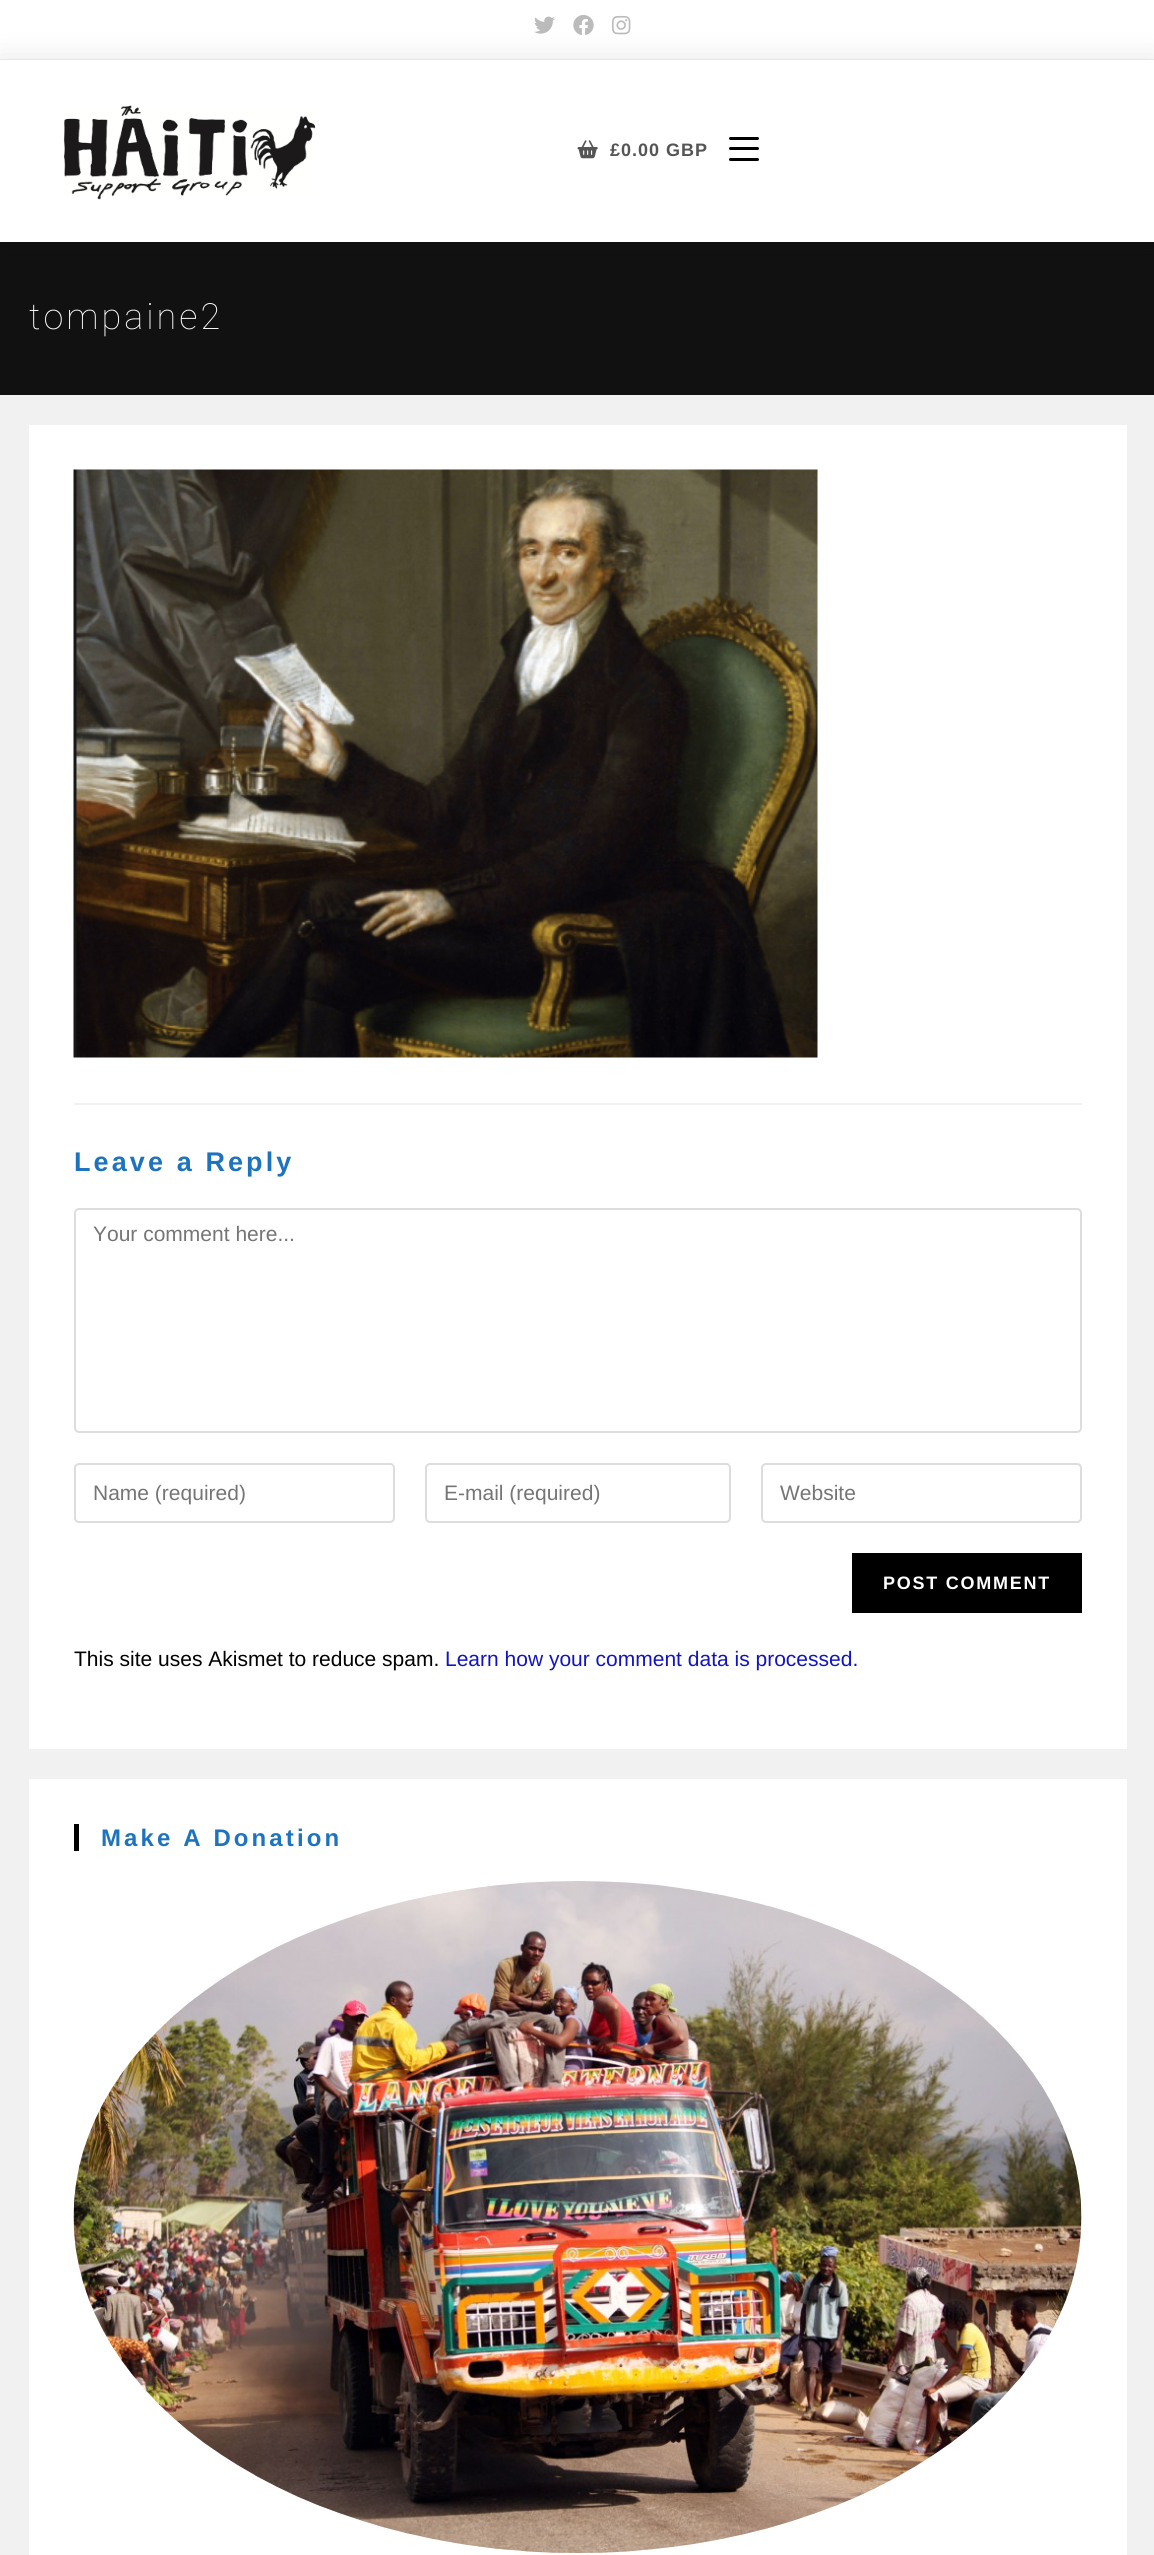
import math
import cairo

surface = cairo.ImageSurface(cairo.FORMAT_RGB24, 1154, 2555)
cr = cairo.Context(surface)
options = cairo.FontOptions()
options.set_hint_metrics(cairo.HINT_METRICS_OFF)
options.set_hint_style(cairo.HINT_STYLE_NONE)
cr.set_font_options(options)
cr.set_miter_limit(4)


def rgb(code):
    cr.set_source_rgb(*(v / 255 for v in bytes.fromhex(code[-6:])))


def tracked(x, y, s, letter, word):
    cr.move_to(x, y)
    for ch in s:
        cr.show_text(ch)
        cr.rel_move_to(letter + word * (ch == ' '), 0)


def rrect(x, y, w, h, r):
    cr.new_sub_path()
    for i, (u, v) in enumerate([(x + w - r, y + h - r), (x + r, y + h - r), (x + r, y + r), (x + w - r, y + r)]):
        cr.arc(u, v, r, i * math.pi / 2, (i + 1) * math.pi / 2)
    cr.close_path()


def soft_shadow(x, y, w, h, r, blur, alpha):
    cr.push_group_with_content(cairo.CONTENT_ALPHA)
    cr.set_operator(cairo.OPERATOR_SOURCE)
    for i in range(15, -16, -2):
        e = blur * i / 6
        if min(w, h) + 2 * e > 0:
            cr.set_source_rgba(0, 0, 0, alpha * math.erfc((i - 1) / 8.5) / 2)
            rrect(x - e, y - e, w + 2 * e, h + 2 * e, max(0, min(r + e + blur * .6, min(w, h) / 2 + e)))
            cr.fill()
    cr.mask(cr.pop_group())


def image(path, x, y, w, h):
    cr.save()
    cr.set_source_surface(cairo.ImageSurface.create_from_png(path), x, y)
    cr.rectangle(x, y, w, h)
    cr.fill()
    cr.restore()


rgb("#f1f1f1")
cr.paint()
rgb("#ffffff")
cr.rectangle(0, 0, 1154, 59)
cr.fill()
image("img/1.png", 534, 16, 21, 18)
image("img/2.png", 573, 15, 21, 20)
image("img/3.png", 612, 15, 19, 20)
rgb("#111111")
cr.rectangle(0, 242, 1154, 153)
cr.fill()
rgb("#000000")
soft_shadow(0, 60, 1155, 182, 0, 15, 0.1)
rgb("#ffffff")
cr.rectangle(0, 60, 1154, 182)
cr.fill()
image("img/4.png", 63, 105, 253, 95)
image("img/5.png", 577, 140, 21, 19)
rgb("#000000")
rrect(729, 147, 30, 3, 1.5)
cr.fill()
rrect(729, 137, 30, 3, 1.5)
cr.fill()
rrect(729, 158, 30, 3, 1.5)
cr.fill()
rgb("#ffffff")
cr.rectangle(29, 425, 1098, 1324)
cr.fill()
image("img/6.png", 73, 469, 745, 589)
rgb("#f1f1f1")
cr.rectangle(74, 1103, 1008, 2)
cr.fill()
rrect(75, 1209, 1006, 223, 4)
rgb("#dddddd")
cr.stroke()
rrect(75, 1464, 319, 58, 4)
cr.stroke()
rrect(426, 1464, 304, 58, 4)
cr.stroke()
rrect(762, 1464, 319, 58, 4)
cr.stroke()
for x, y, w, h, color in [
    (852, 1553, 230, 60, "#000000"),
    (29, 1779, 1098, 776, "#ffffff"),
    (74, 1824, 5, 27, "#000000"),
]:
    rgb(color)
    cr.rectangle(x, y, w, h)
    cr.fill()
image("img/7.png", 73, 1881, 1009, 672)
cr.select_font_face("Liberation Sans", cairo.FONT_SLANT_NORMAL, cairo.FONT_WEIGHT_BOLD)
cr.set_font_size(18)
rgb("#555555")
tracked(610, 156, "£0.00 GBP", 1, 0)
cr.select_font_face("Roboto Thin")
cr.set_font_size(36)
rgb("#ffffff")
tracked(29, 329, "tompaine2", 3, 0)
cr.select_font_face("Liberation Sans", cairo.FONT_SLANT_NORMAL, cairo.FONT_WEIGHT_BOLD)
cr.set_font_size(27)
rgb("#1e73be")
tracked(74, 1171, "Leave a Reply", 3.1, 0)
cr.select_font_face("Liberation Sans")
cr.set_font_size(21)
rgb("#757575")
for x, y, s in [
    (93, 1241, "Your comment here..."),
    (93, 1500, "Name (required)"),
    (444, 1500, "E-mail (required)"),
    (780, 1500, "Website"),
]:
    cr.move_to(x, y)
    cr.show_text(s)
cr.select_font_face("Liberation Sans", cairo.FONT_SLANT_NORMAL, cairo.FONT_WEIGHT_BOLD)
cr.set_font_size(18)
rgb("#ffffff")
tracked(883, 1589, "POST COMMENT", 1.75, 0)
cr.select_font_face("Liberation Sans")
cr.set_font_size(21)
rgb("#000000")
cr.move_to(74, 1666)
cr.show_text("This site uses Akismet to reduce spam.")
rgb("#1114c4")
cr.move_to(445, 1666)
cr.show_text("Learn how your comment data is processed.")
cr.select_font_face("Liberation Sans", cairo.FONT_SLANT_NORMAL, cairo.FONT_WEIGHT_BOLD)
cr.set_font_size(24)
rgb("#1e73be")
tracked(101, 1846, "Make A Donation", 3.1, 0)
surface.write_to_png("page.png")
